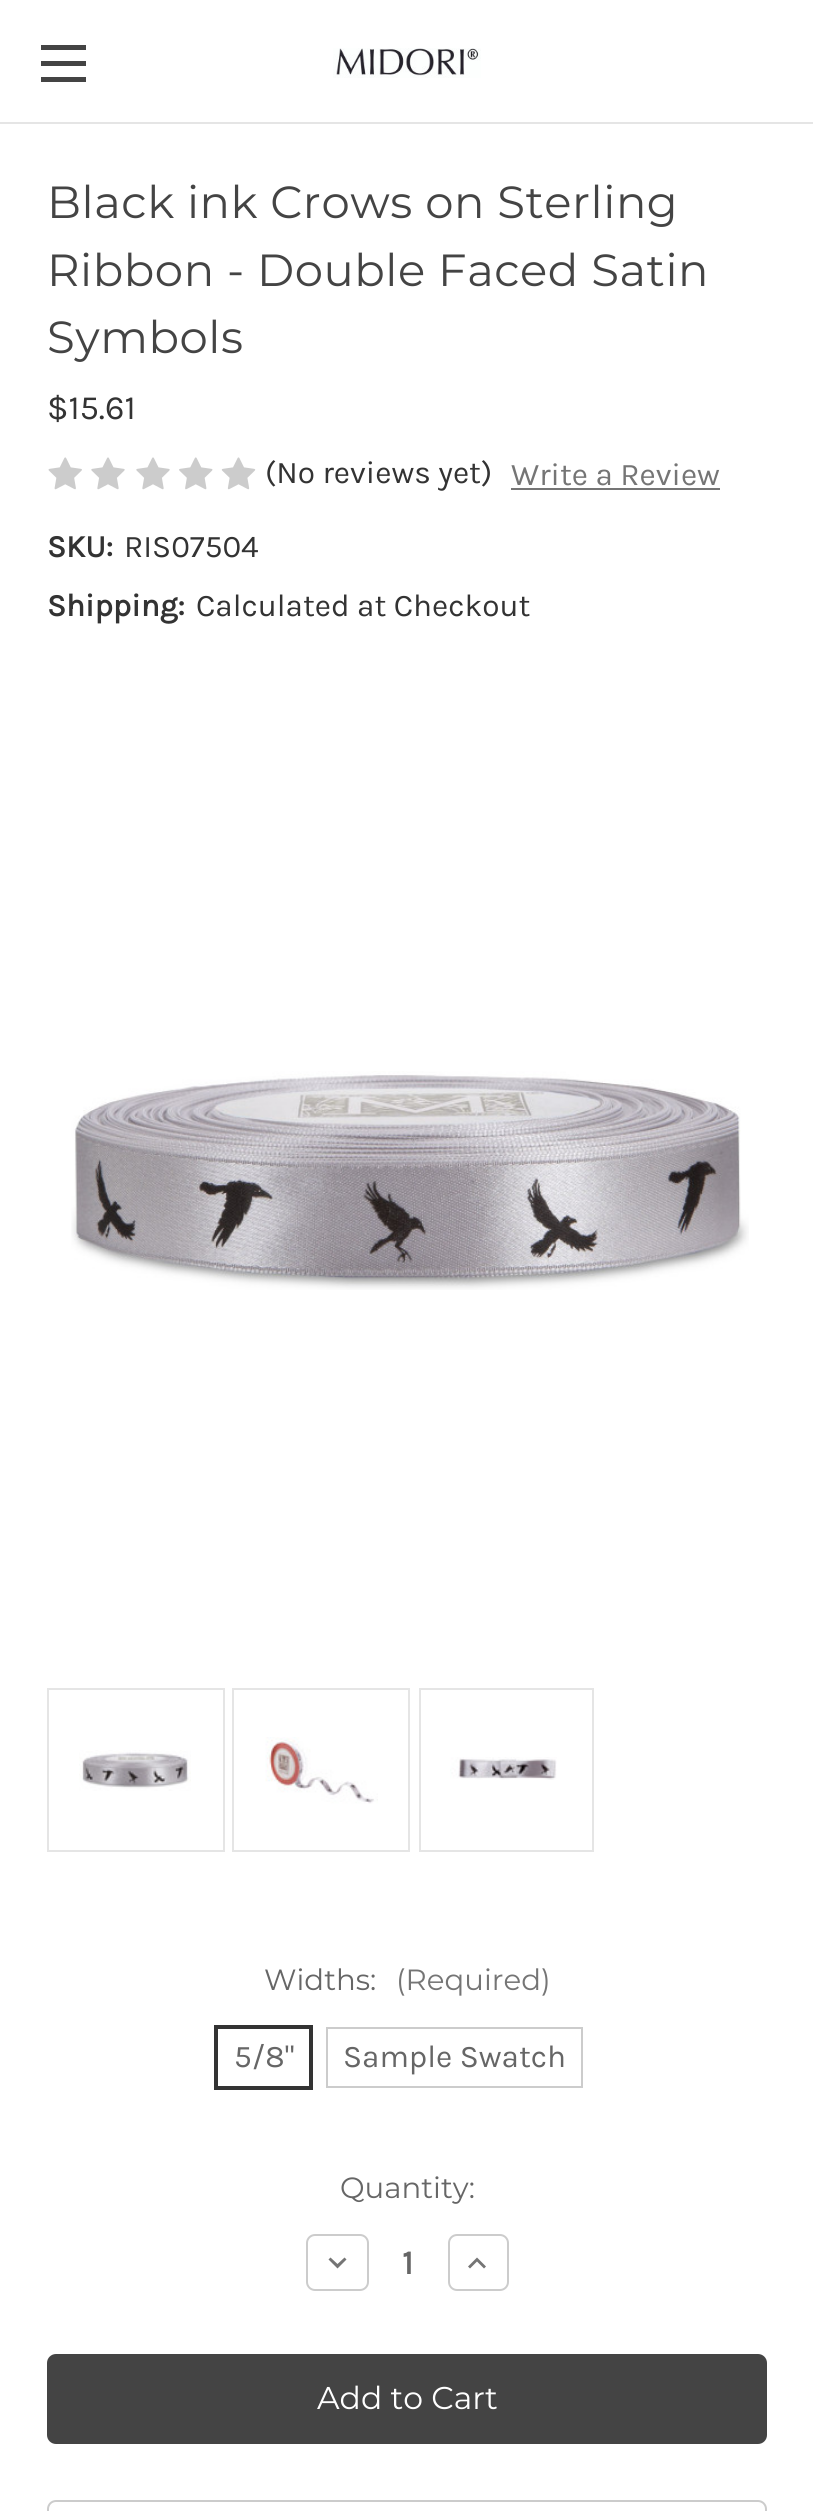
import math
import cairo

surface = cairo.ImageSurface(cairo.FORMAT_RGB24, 813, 2511)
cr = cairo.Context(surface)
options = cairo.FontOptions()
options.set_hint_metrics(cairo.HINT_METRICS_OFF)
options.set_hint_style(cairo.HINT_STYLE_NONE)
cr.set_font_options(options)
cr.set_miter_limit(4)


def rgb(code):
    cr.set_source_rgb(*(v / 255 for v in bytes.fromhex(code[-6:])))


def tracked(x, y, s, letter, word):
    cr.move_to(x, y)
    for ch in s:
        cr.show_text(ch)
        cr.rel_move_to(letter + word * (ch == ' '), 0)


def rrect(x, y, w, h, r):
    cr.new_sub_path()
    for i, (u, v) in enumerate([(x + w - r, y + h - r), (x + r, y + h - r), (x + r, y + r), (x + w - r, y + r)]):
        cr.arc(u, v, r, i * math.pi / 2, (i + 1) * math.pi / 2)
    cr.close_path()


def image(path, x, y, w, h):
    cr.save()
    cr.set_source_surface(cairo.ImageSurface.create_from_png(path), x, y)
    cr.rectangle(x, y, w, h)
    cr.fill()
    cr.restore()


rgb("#ffffff")
cr.paint()
for x, y, w, h, color in [
    (0, 122, 813, 2, "#e5e5e5"),
    (41, 61, 45, 5, "#444444"),
    (41, 45, 45, 5, "#444444"),
    (41, 77, 45, 5, "#444444"),
]:
    rgb(color)
    cr.rectangle(x, y, w, h)
    cr.fill()
image("img/1.png", 333, 48, 148, 30)
image("img/2.png", 48, 457, 34, 33)
image("img/3.png", 91, 457, 34, 33)
image("img/3.png", 136, 457, 34, 33)
image("img/4.png", 179, 457, 34, 33)
image("img/5.png", 221, 457, 35, 33)
rgb("#757575")
cr.rectangle(511, 488, 209, 2)
cr.fill()
image("img/6.png", 71, 1071, 678, 219)
cr.rectangle(48, 1689, 176, 162)
rgb("#e5e5e5")
cr.stroke()
image("img/7.png", 79, 1750, 112, 41)
cr.rectangle(233, 1689, 176, 162)
cr.stroke()
image("img/8.png", 265, 1737, 113, 67)
cr.rectangle(420, 1689, 173, 162)
cr.stroke()
image("img/9.png", 450, 1757, 107, 23)
cr.rectangle(215, 2026, 97, 63)
rgb("#333333")
cr.stroke()
cr.rectangle(217, 2028, 93, 59)
cr.stroke()
cr.rectangle(327, 2028, 255, 59)
rgb("#cccccc")
cr.stroke()
rrect(307, 2235, 61, 55, 8)
cr.stroke()
rgb("#757575")
cr.new_path()
cr.move_to(330.5, 2257.5)
cr.line_to(337.5, 2264)
cr.line_to(344.5, 2257.5)
cr.line_to(346.5, 2259.5)
cr.line_to(337.5, 2268.5)
cr.line_to(328.5, 2259.5)
cr.close_path()
cr.fill()
rrect(449, 2235, 59, 55, 8)
rgb("#cccccc")
cr.stroke()
rgb("#757575")
cr.new_path()
cr.move_to(470, 2268.5)
cr.line_to(477, 2261.5)
cr.line_to(484, 2268.5)
cr.line_to(486, 2266.5)
cr.line_to(477, 2257.5)
cr.line_to(468, 2266.5)
cr.close_path()
cr.fill()
rgb("#444444")
rrect(48, 2355, 718, 88, 8)
cr.fill_preserve()
cr.stroke()
rrect(48, 2501, 718, 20, 8)
rgb("#cccccc")
cr.stroke()
cr.select_font_face("Montserrat")
cr.set_font_size(45)
rgb("#444444")
for x, y, s in [
    (47, 218, "Black ink Crows on Sterling"),
    (47, 286, "Ribbon - Double Faced Satin"),
    (47, 353, "Symbols"),
]:
    tracked(x, y, s, 0.55, 0)
cr.select_font_face("Karla")
cr.set_font_size(34)
rgb("#333333")
cr.move_to(47, 419)
cr.show_text("$15.61")
cr.set_font_size(31.5)
cr.move_to(265, 483)
cr.show_text("(No reviews yet)")
rgb("#757575")
cr.move_to(511, 485)
cr.show_text("Write a Review")
cr.select_font_face("Karla", cairo.FONT_SLANT_NORMAL, cairo.FONT_WEIGHT_BOLD)
rgb("#333333")
cr.move_to(47, 557)
cr.show_text("SKU:")
cr.select_font_face("Karla")
cr.move_to(124, 557)
cr.show_text("RIS07504")
cr.select_font_face("Karla", cairo.FONT_SLANT_NORMAL, cairo.FONT_WEIGHT_BOLD)
cr.move_to(47, 616)
cr.show_text("Shipping:")
cr.select_font_face("Karla")
cr.move_to(196, 616)
cr.show_text("Calculated at Checkout")
cr.select_font_face("Montserrat")
cr.set_font_size(29.25)
rgb("#666666")
cr.move_to(264, 1990)
cr.show_text("Widths:")
rgb("#757575")
cr.move_to(396, 1990)
cr.show_text("(Required)")
cr.select_font_face("Karla")
cr.set_font_size(31.5)
rgb("#666666")
cr.move_to(234, 2067)
cr.show_text("5/8\"")
cr.move_to(343, 2067)
cr.show_text("Sample Swatch")
cr.select_font_face("Montserrat")
cr.set_font_size(29.25)
cr.move_to(340, 2198)
cr.show_text("Quantity:")
cr.select_font_face("Karla", cairo.FONT_SLANT_NORMAL, cairo.FONT_WEIGHT_BOLD)
cr.set_font_size(34)
cr.move_to(402, 2274)
cr.show_text("1")
cr.select_font_face("Montserrat")
cr.set_font_size(31.5)
rgb("#ffffff")
cr.move_to(317, 2409)
cr.show_text("Add to Cart")
surface.write_to_png("page.png")
